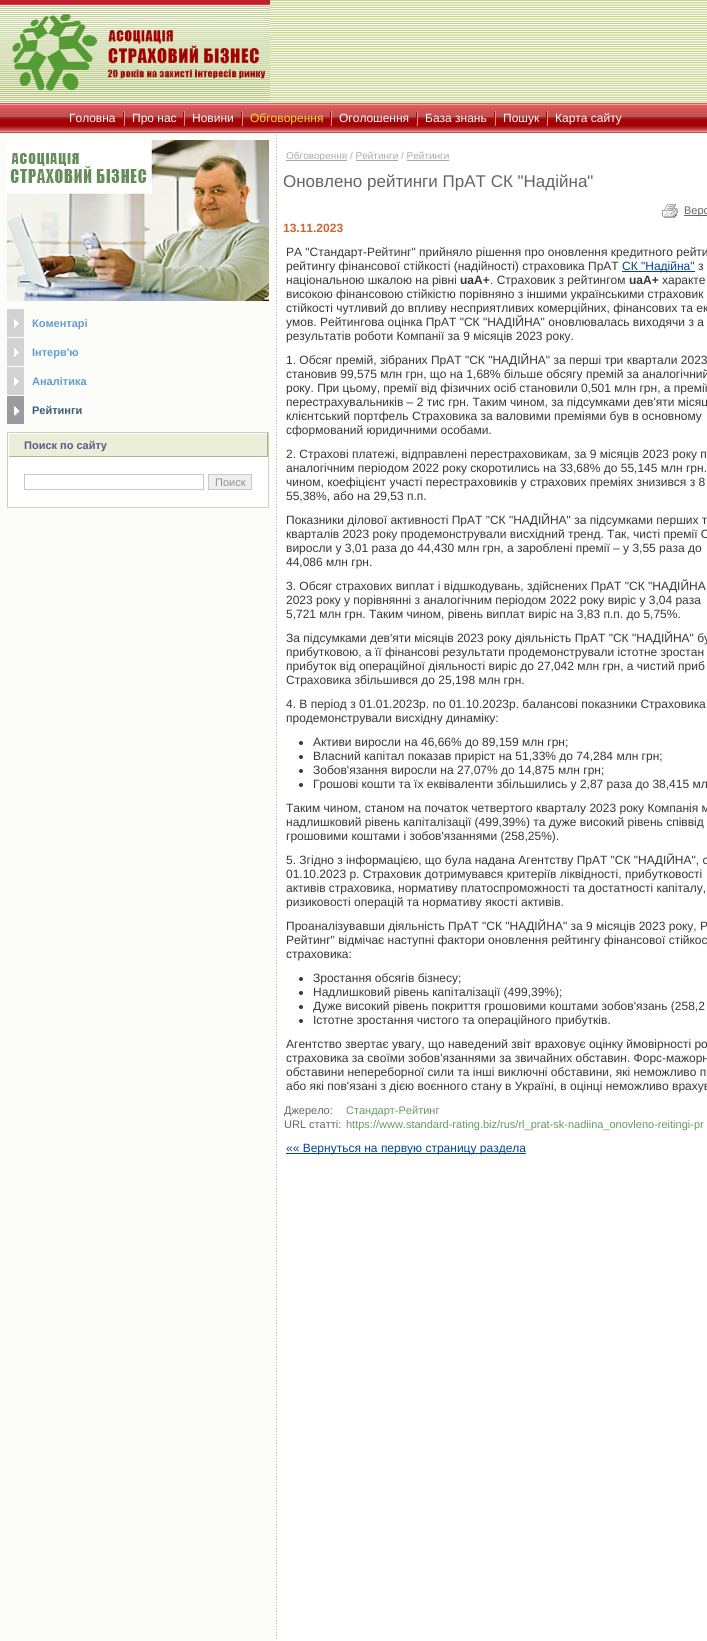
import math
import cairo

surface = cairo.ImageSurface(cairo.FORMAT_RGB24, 707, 1641)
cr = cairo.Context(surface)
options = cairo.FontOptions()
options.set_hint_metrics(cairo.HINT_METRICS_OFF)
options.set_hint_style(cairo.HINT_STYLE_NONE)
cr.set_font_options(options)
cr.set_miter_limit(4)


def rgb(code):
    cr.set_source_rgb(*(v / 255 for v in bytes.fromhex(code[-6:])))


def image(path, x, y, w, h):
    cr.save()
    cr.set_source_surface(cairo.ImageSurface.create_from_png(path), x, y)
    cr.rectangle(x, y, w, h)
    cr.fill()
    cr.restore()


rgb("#ffffff")
cr.paint()
image("img/1.png", 0, 0, 270, 103)
image("img/2.png", 270, 0, 437, 103)
image("img/3.png", 0, 103, 20, 30)
image("img/4.png", 20, 103, 45, 30)
image("img/5.png", 65, 103, 642, 30)
image("img/6.png", 123, 111, 2, 15)
image("img/6.png", 183, 111, 2, 15)
image("img/6.png", 241, 111, 2, 15)
image("img/6.png", 330, 111, 2, 15)
image("img/6.png", 416, 111, 2, 15)
image("img/6.png", 494, 111, 2, 15)
image("img/6.png", 546, 111, 2, 15)
rgb("#fcfcf9")
cr.rectangle(0, 133, 276, 1508)
cr.fill()
image("img/7.png", 7, 140, 262, 161)
rgb("#d2d2d2")
cr.rectangle(7, 309, 17, 28)
cr.fill()
image("img/8.png", 14, 319, 6, 10)
cr.rectangle(7, 338, 17, 28)
cr.fill()
image("img/8.png", 14, 348, 6, 10)
cr.rectangle(7, 367, 17, 28)
cr.fill()
image("img/8.png", 14, 377, 6, 10)
rgb("#9b9a9c")
cr.rectangle(7, 396, 17, 28)
cr.fill()
image("img/9.png", 14, 406, 6, 10)
cr.rectangle(7.5, 432.5, 261, 75)
rgb("#ced2ba")
cr.set_line_width(1)
cr.stroke()
for x, y, w, h, color in [
    (9, 434, 258, 22, "#ebeed9"),
    (8, 433, 260, 1, "#ffffff"),
    (267, 433, 1, 24, "#acb28d"),
    (8, 456, 260, 1, "#acb28d"),
    (8, 433, 1, 24, "#ffffff"),
    (8, 457, 260, 50, "#ffffff"),
]:
    rgb(color)
    cr.rectangle(x, y, w, h)
    cr.fill()
cr.rectangle(24.5, 474.5, 179, 15)
rgb("#c8c8c8")
cr.stroke()
rgb("#efefef")
cr.rectangle(208.5, 474.5, 43, 15)
cr.fill_preserve()
rgb("#c8c8c8")
cr.stroke()
image("img/10.png", 276, 133, 1, 1508)
for x, y, w, h, color in [
    (286, 160, 61, 1, "#aaaaaa"),
    (356, 160, 42, 1, "#aaaaaa"),
    (407, 160, 42, 1, "#aaaaaa"),
]:
    rgb(color)
    cr.rectangle(x, y, w, h)
    cr.fill()
image("img/11.png", 662, 204, 16, 14)
rgb("#666666")
cr.rectangle(684, 215, 23, 1)
cr.fill()
rgb("#004499")
cr.rectangle(622, 271, 73, 1)
cr.fill()
rgb("#373737")
cr.arc(301, 743, 2, 0, 2 * math.pi)
cr.fill()
cr.arc(301, 757, 2, 0, 2 * math.pi)
cr.fill()
cr.arc(301, 771, 2, 0, 2 * math.pi)
cr.fill()
cr.arc(301, 785, 2, 0, 2 * math.pi)
cr.fill()
cr.arc(301, 979, 2, 0, 2 * math.pi)
cr.fill()
cr.arc(301, 993, 2, 0, 2 * math.pi)
cr.fill()
cr.arc(301, 1007, 2, 0, 2 * math.pi)
cr.fill()
cr.arc(301, 1021, 2, 0, 2 * math.pi)
cr.fill()
rgb("#004499")
cr.rectangle(286, 1153, 240, 1)
cr.fill()
cr.select_font_face("Liberation Sans")
cr.set_font_size(12)
rgb("#ffffff")
for x, y, s in [
    (69, 122, "Головна"),
    (132, 122, "Про нас"),
    (192, 122, "Новини"),
]:
    cr.move_to(x, y)
    cr.show_text(s)
rgb("#fed738")
cr.move_to(250, 122)
cr.show_text("Обговорення")
rgb("#ffffff")
for x, y, s in [
    (339, 122, "Оголошення"),
    (425, 122, "База знань"),
    (503, 122, "Пошук"),
    (555, 122, "Карта сайту"),
]:
    cr.move_to(x, y)
    cr.show_text(s)
cr.select_font_face("Liberation Sans", cairo.FONT_SLANT_NORMAL, cairo.FONT_WEIGHT_BOLD)
cr.set_font_size(11)
rgb("#619dcd")
for x, y, s in [
    (32, 327, "Коментарі"),
    (32, 356, "Інтерв'ю"),
    (32, 385, "Аналітика"),
]:
    cr.move_to(x, y)
    cr.show_text(s)
rgb("#355b7c")
cr.move_to(32, 414)
cr.show_text("Рейтинги")
rgb("#565a8a")
cr.move_to(24, 449)
cr.show_text("Поиск по сайту")
cr.select_font_face("Liberation Sans")
rgb("#929292")
cr.move_to(215, 486)
cr.show_text("Поиск")
cr.set_font_size(10)
rgb("#aaaaaa")
cr.move_to(286, 159)
cr.show_text("Обговорення / Рейтинги / Рейтинги")
cr.set_font_size(17)
rgb("#646464")
cr.move_to(283, 187)
cr.show_text("Оновлено рейтинги ПрАТ СК \"Надійна\"")
cr.set_font_size(11)
cr.move_to(684, 214)
cr.show_text("Верс")
cr.select_font_face("Liberation Sans", cairo.FONT_SLANT_NORMAL, cairo.FONT_WEIGHT_BOLD)
cr.set_font_size(12)
rgb("#cc6633")
cr.move_to(283, 232)
cr.show_text("13.11.2023")
cr.select_font_face("Liberation Sans")
rgb("#373737")
cr.move_to(286, 256)
cr.show_text("РА \"Стандарт-Рейтинг\" прийняло рішення про оновлення кредитного рейти")
cr.move_to(286, 270)
cr.show_text("рейтингу фінансової стійкості (надійності) страховика ПрАТ")
rgb("#004499")
cr.move_to(622, 270)
cr.show_text("СК \"Надійна\"")
rgb("#373737")
cr.move_to(698, 270)
cr.show_text("з")
cr.move_to(286, 284)
cr.show_text("національною шкалою на рівні")
cr.select_font_face("Liberation Sans", cairo.FONT_SLANT_NORMAL, cairo.FONT_WEIGHT_BOLD)
cr.move_to(460, 284)
cr.show_text("uaA+")
cr.select_font_face("Liberation Sans")
cr.move_to(490, 284)
cr.show_text(". Страховик з рейтингом")
cr.select_font_face("Liberation Sans", cairo.FONT_SLANT_NORMAL, cairo.FONT_WEIGHT_BOLD)
cr.move_to(629, 284)
cr.show_text("uaA+")
cr.select_font_face("Liberation Sans")
for x, y, s in [
    (662, 284, "характе"),
    (286, 298, "високою фінансовою стійкістю порівняно з іншими українськими страховик"),
    (286, 312, "стійкості чутливий до впливу несприятливих комерційних, фінансових та ек"),
    (286, 326, "умов. Рейтингова оцінка ПрАТ \"СК \"НАДІЙНА\" оновлювалась виходячи з а"),
    (286, 340, "результатів роботи Компанії за 9 місяців 2023 року."),
    (286, 364, "1. Обсяг премій, зібраних ПрАТ \"СК \"НАДІЙНА\" за перші три квартали 2023"),
    (286, 378, "становив 99,575 млн грн, що на 1,68% більше обсягу премій за аналогічний"),
    (286, 392, "року. При цьому, премії від фізичних осіб становили 0,501 млн грн, а премії"),
    (286, 406, "перестрахувальників – 2 тис грн. Таким чином, за підсумками дев'яти місяц"),
    (286, 420, "клієнтський портфель Страховика за валовими преміями був в основному"),
    (286, 434, "сформований юридичними особами."),
    (286, 458, "2. Страхові платежі, відправлені перестраховикам, за 9 місяців 2023 року п"),
    (286, 472, "аналогічним періодом 2022 року скоротились на 33,68% до 55,145 млн грн."),
    (286, 486, "чином, коефіцієнт участі перестраховиків у страхових преміях знизився з 8"),
    (286, 500, "55,38%, або на 29,53 п.п."),
    (286, 524, "Показники ділової активності ПрАТ \"СК \"НАДІЙНА\" за підсумками перших т"),
    (286, 538, "кварталів 2023 року продемонстрували висхідний тренд. Так, чисті премії С"),
    (286, 552, "виросли у 3,01 раза до 44,430 млн грн, а зароблені премії – у 3,55 раза до"),
    (286, 566, "44,086 млн грн."),
    (286, 590, "3. Обсяг страхових виплат і відшкодувань, здійснених ПрАТ \"СК \"НАДІЙНА"),
    (286, 604, "2023 року у порівнянні з аналогічним періодом 2022 року виріс у 3,04 раза"),
    (286, 618, "5,721 млн грн. Таким чином, рівень виплат виріс на 3,83 п.п. до 5,75%."),
    (286, 642, "За підсумками дев'яти місяців 2023 року діяльність ПрАТ \"СК \"НАДІЙНА\" бу"),
    (286, 656, "прибутковою, а її фінансові результати продемонстрували істотне зростан"),
    (286, 670, "прибуток від операційної діяльності виріс до 27,042 млн грн, а чистий приб"),
    (286, 684, "Страховика збільшився до 25,198 млн грн."),
    (286, 708, "4. В період з 01.01.2023р. по 01.10.2023р. балансові показники Страховика"),
    (286, 722, "продемонстрували висхідну динаміку:"),
    (313, 746, "Активи виросли на 46,66% до 89,159 млн грн;"),
    (313, 760, "Власний капітал показав приріст на 51,33% до 74,284 млн грн;"),
    (313, 774, "Зобов'язання виросли на 27,07% до 14,875 млн грн;"),
    (313, 788, "Грошові кошти та їх еквіваленти збільшились у 2,87 раза до 38,415 мл"),
    (286, 812, "Таким чином, станом на початок четвертого кварталу 2023 року Компанія м"),
    (286, 826, "надлишковий рівень капіталізації (499,39%) та дуже високий рівень співвід"),
    (286, 840, "грошовими коштами і зобов'язаннями (258,25%)."),
    (286, 864, "5. Згідно з інформацією, що була надана Агентству ПрАТ \"СК \"НАДІЙНА\", с"),
    (286, 878, "01.10.2023 р. Страховик дотримувався критеріїв ліквідності, прибутковості"),
    (286, 892, "активів страховика, нормативу платоспроможності та достатності капіталу,"),
    (286, 906, "ризиковості операцій та нормативу якості активів."),
    (286, 930, "Проаналізувавши діяльність ПрАТ \"СК \"НАДІЙНА\" за 9 місяців 2023 року, Р"),
    (286, 944, "Рейтинг\" відмічає наступні фактори оновлення рейтингу фінансової стійкос"),
    (286, 958, "страховика:"),
    (313, 982, "Зростання обсягів бізнесу;"),
    (313, 996, "Надлишковий рівень капіталізації (499,39%);"),
    (313, 1010, "Дуже високий рівень покриття грошовими коштами зобов'язань (258,2"),
    (313, 1024, "Істотне зростання чистого та операційного прибутків."),
    (286, 1048, "Агентство звертає увагу, що наведений звіт враховує оцінку ймовірності ро"),
    (286, 1062, "страховика за своїми зобов'язаннями за звичайних обставин. Форс-мажорн"),
    (286, 1076, "обставини непереборної сили та інші виключні обставини, які неможливо п"),
    (286, 1090, "або які пов'язані з дією воєнного стану в Україні, в оцінці неможливо врахув"),
]:
    cr.move_to(x, y)
    cr.show_text(s)
cr.set_font_size(11)
rgb("#646464")
cr.move_to(284, 1114)
cr.show_text("Джерело:")
rgb("#669966")
cr.move_to(346, 1114)
cr.show_text("Стандарт-Рейтинг")
rgb("#646464")
cr.move_to(284, 1128)
cr.show_text("URL статті:")
rgb("#669966")
cr.move_to(346, 1128)
cr.show_text("https://www.standard-rating.biz/rus/rl_prat-sk-nadiina_onovleno-reitingi-pr")
cr.set_font_size(12)
rgb("#004499")
cr.move_to(286, 1152)
cr.show_text("«« Вернуться на первую страницу раздела")
surface.write_to_png("page.png")
